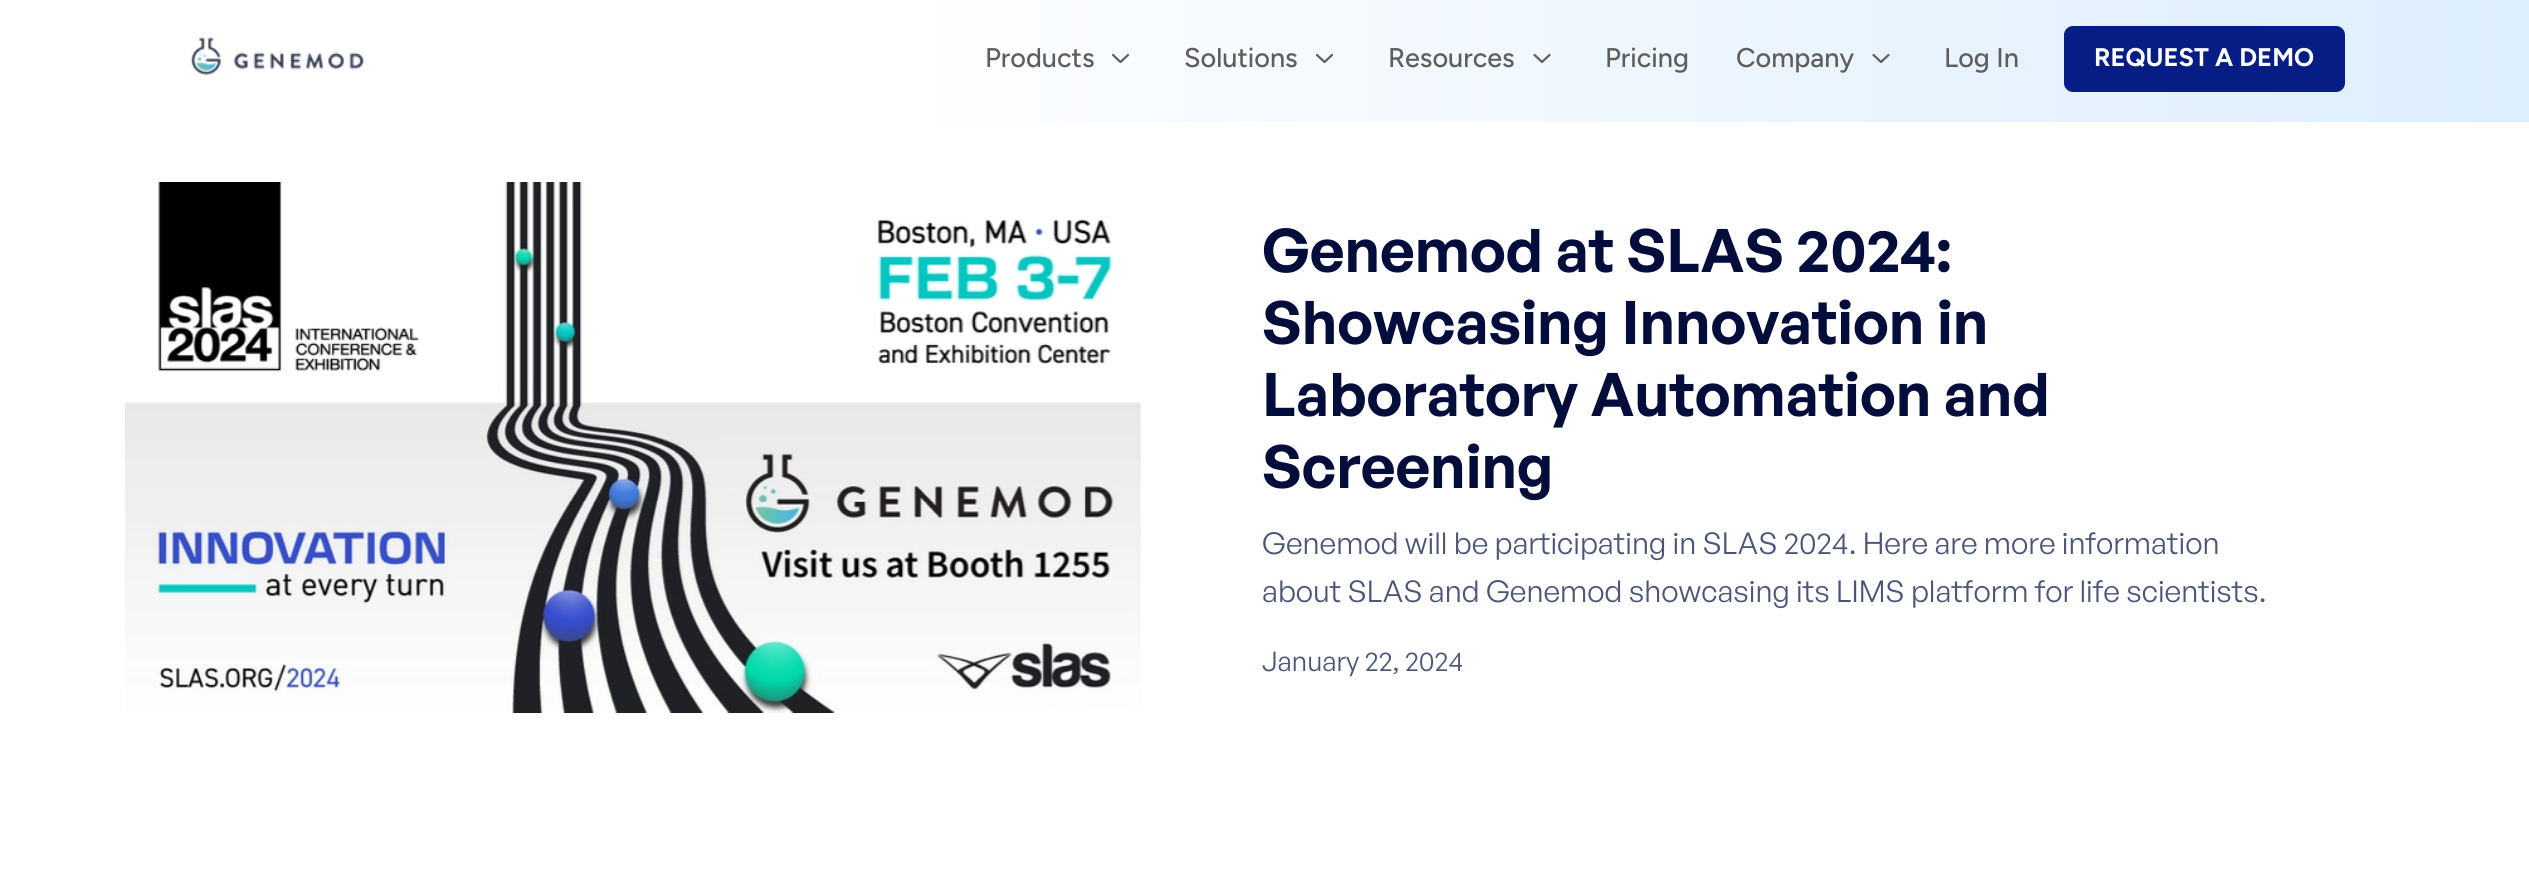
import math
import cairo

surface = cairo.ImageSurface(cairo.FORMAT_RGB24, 2529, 869)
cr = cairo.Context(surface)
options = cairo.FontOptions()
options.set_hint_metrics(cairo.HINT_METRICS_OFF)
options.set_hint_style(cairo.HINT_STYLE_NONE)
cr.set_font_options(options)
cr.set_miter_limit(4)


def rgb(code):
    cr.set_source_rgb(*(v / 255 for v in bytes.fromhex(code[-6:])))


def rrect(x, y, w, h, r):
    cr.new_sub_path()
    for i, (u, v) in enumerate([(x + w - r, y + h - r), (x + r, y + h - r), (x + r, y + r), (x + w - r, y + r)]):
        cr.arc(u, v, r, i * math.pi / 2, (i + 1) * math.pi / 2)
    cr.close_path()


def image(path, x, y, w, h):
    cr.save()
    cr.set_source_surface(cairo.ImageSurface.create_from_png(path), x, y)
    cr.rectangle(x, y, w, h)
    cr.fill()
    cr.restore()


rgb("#ffffff")
cr.paint()
gradient = cairo.LinearGradient(0, 61, 2529, 61)
gradient.add_color_stop_rgba(0.32, 1, 1, 1, 1)
gradient.add_color_stop_rgba(1, 0.867, 0.933, 0.992, 1)
cr.set_source(gradient)
cr.rectangle(936, 0, 1593, 122)
cr.fill()
image("img/1.png", 190, 37, 175, 39)
cr.new_path()
cr.move_to(1113, 55)
cr.line_to(1120.5, 62)
cr.line_to(1128, 55)
rgb("#5e5e5e")
cr.set_line_width(2.2)
cr.set_line_cap(cairo.LINE_CAP_ROUND)
cr.set_line_join(cairo.LINE_JOIN_ROUND)
cr.stroke()
cr.new_path()
cr.move_to(1317, 55)
cr.line_to(1324.5, 62)
cr.line_to(1332, 55)
cr.stroke()
cr.new_path()
cr.move_to(1534.5, 55)
cr.line_to(1542, 62)
cr.line_to(1549.5, 55)
cr.stroke()
cr.new_path()
cr.move_to(1873.5, 55)
cr.line_to(1881, 62)
cr.line_to(1888.5, 55)
cr.stroke()
rgb("#051d85")
rrect(2064, 26, 281, 66, 9)
cr.fill()
image("img/2.png", 125, 182, 1017, 531)
cr.select_font_face("Figtree Medium")
cr.set_font_size(27)
rgb("#5e5e5e")
for x, y, s in [
    (985, 67, "Products"),
    (1184, 67, "Solutions"),
    (1388, 67, "Resources"),
    (1605, 67, "Pricing"),
    (1736, 67, "Company"),
    (1944, 67, "Log In"),
]:
    cr.move_to(x, y)
    cr.show_text(s)
cr.select_font_face("Figtree", cairo.FONT_SLANT_NORMAL, cairo.FONT_WEIGHT_BOLD)
cr.set_font_size(25.5)
rgb("#ffffff")
cr.move_to(2094, 66)
cr.show_text("REQUEST A DEMO")
cr.select_font_face("General Sans SemiBold")
cr.set_font_size(60)
rgb("#020d3b")
for x, y, s in [
    (1262, 272, "Genemod at SLAS 2024:"),
    (1262, 344, "Showcasing Innovation in"),
    (1262, 416, "Laboratory Automation and"),
    (1262, 488, "Screening"),
]:
    cr.move_to(x, y)
    cr.show_text(s)
cr.select_font_face("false")
cr.set_font_size(30)
rgb("#4a5578")
cr.move_to(1262, 554)
cr.show_text("Genemod will be participating in SLAS 2024. Here are more information")
cr.move_to(1262, 602)
cr.show_text("about SLAS and Genemod showcasing its LIMS platform for life scientists.")
cr.set_font_size(27)
cr.move_to(1262, 671)
cr.show_text("January 22, 2024")
surface.write_to_png("page.png")
